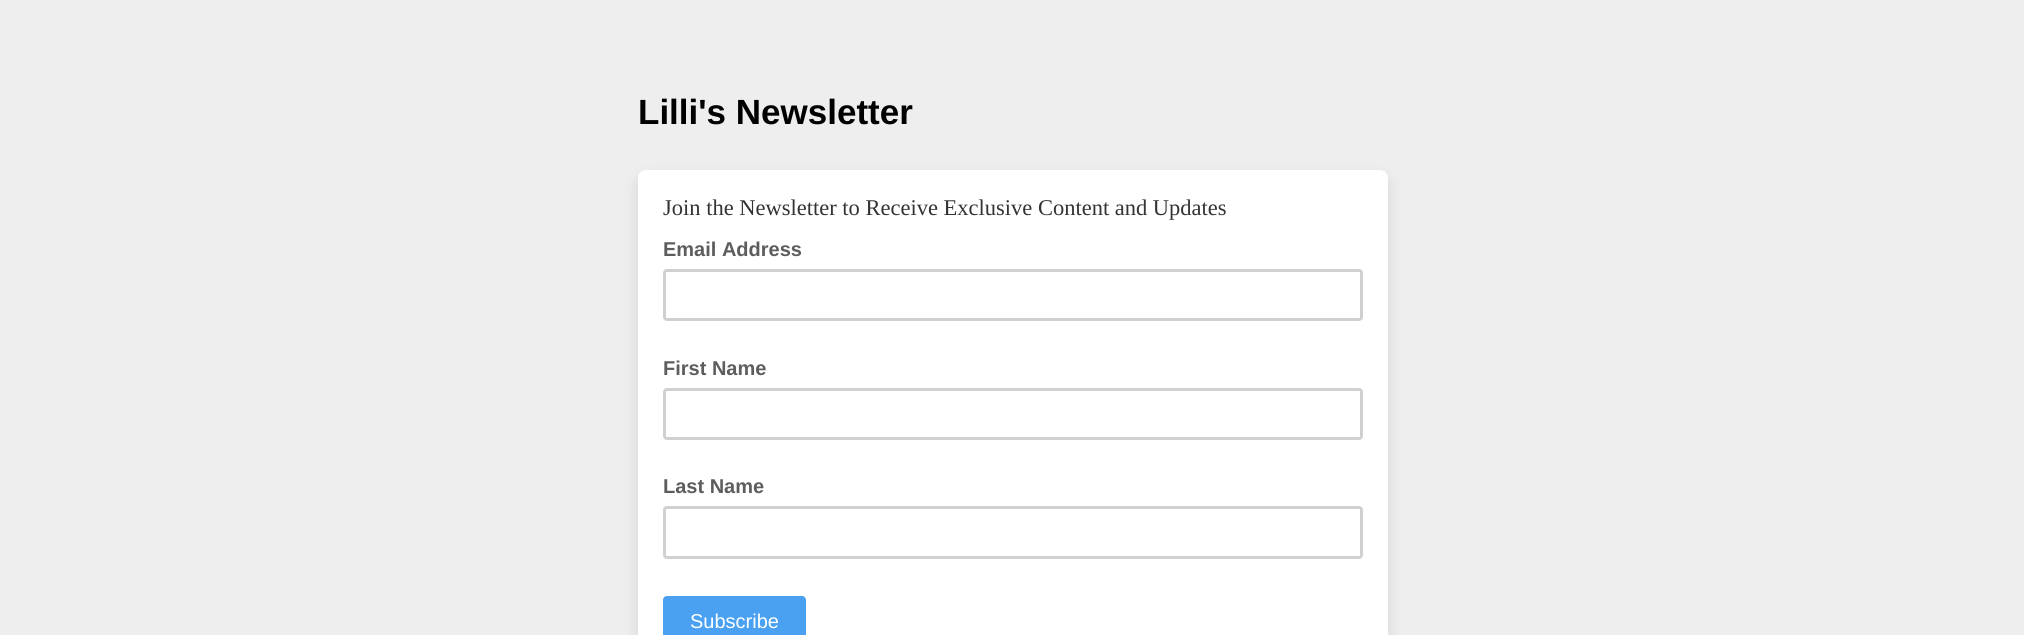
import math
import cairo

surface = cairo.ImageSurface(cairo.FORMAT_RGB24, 2024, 635)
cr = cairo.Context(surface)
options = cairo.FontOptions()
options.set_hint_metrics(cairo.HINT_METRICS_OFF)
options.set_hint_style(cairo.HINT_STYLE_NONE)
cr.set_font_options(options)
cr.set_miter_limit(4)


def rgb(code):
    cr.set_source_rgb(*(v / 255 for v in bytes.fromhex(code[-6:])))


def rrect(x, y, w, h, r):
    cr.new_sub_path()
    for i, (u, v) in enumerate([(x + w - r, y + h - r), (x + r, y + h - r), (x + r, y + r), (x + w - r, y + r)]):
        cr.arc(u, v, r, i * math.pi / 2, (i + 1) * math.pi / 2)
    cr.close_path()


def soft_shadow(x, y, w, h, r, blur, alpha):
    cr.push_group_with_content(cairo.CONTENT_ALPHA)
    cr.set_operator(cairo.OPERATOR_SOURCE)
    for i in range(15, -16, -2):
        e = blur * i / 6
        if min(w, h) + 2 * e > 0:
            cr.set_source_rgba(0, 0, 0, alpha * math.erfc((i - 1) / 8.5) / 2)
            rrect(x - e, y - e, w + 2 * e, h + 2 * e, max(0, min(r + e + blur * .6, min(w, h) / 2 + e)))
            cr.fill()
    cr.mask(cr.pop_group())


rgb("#eeeeee")
cr.paint()
rgb("#0d1216")
soft_shadow(638, 178, 750, 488, 8, 7.5, 0.12)
rgb("#ffffff")
rrect(638, 170, 750, 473, 8)
cr.fill()
rrect(664.5, 270.5, 697, 49, 2.5)
rgb("#d0d0d0")
cr.set_line_width(3)
cr.stroke()
rrect(664.5, 389.5, 697, 49, 2.5)
cr.stroke()
rrect(664.5, 507.5, 697, 50, 2.5)
cr.stroke()
rgb("#4aa1f1")
rrect(663, 596, 143, 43, 4)
cr.fill()
cr.select_font_face("Liberation Sans", cairo.FONT_SLANT_NORMAL, cairo.FONT_WEIGHT_BOLD)
cr.set_font_size(35)
rgb("#000000")
cr.move_to(638, 124)
cr.show_text("Lilli's Newsletter")
cr.select_font_face("Liberation Serif")
cr.set_font_size(22.5)
rgb("#333333")
cr.move_to(663, 215)
cr.show_text("Join the Newsletter to Receive Exclusive Content and Updates")
cr.select_font_face("Liberation Sans", cairo.FONT_SLANT_NORMAL, cairo.FONT_WEIGHT_BOLD)
cr.set_font_size(20)
rgb("#5d5d5d")
for x, y, s in [
    (663, 256, "Email Address"),
    (663, 375, "First Name"),
    (663, 493, "Last Name"),
]:
    cr.move_to(x, y)
    cr.show_text(s)
cr.select_font_face("Liberation Sans")
rgb("#ffffff")
cr.move_to(690, 628)
cr.show_text("Subscribe")
surface.write_to_png("page.png")
